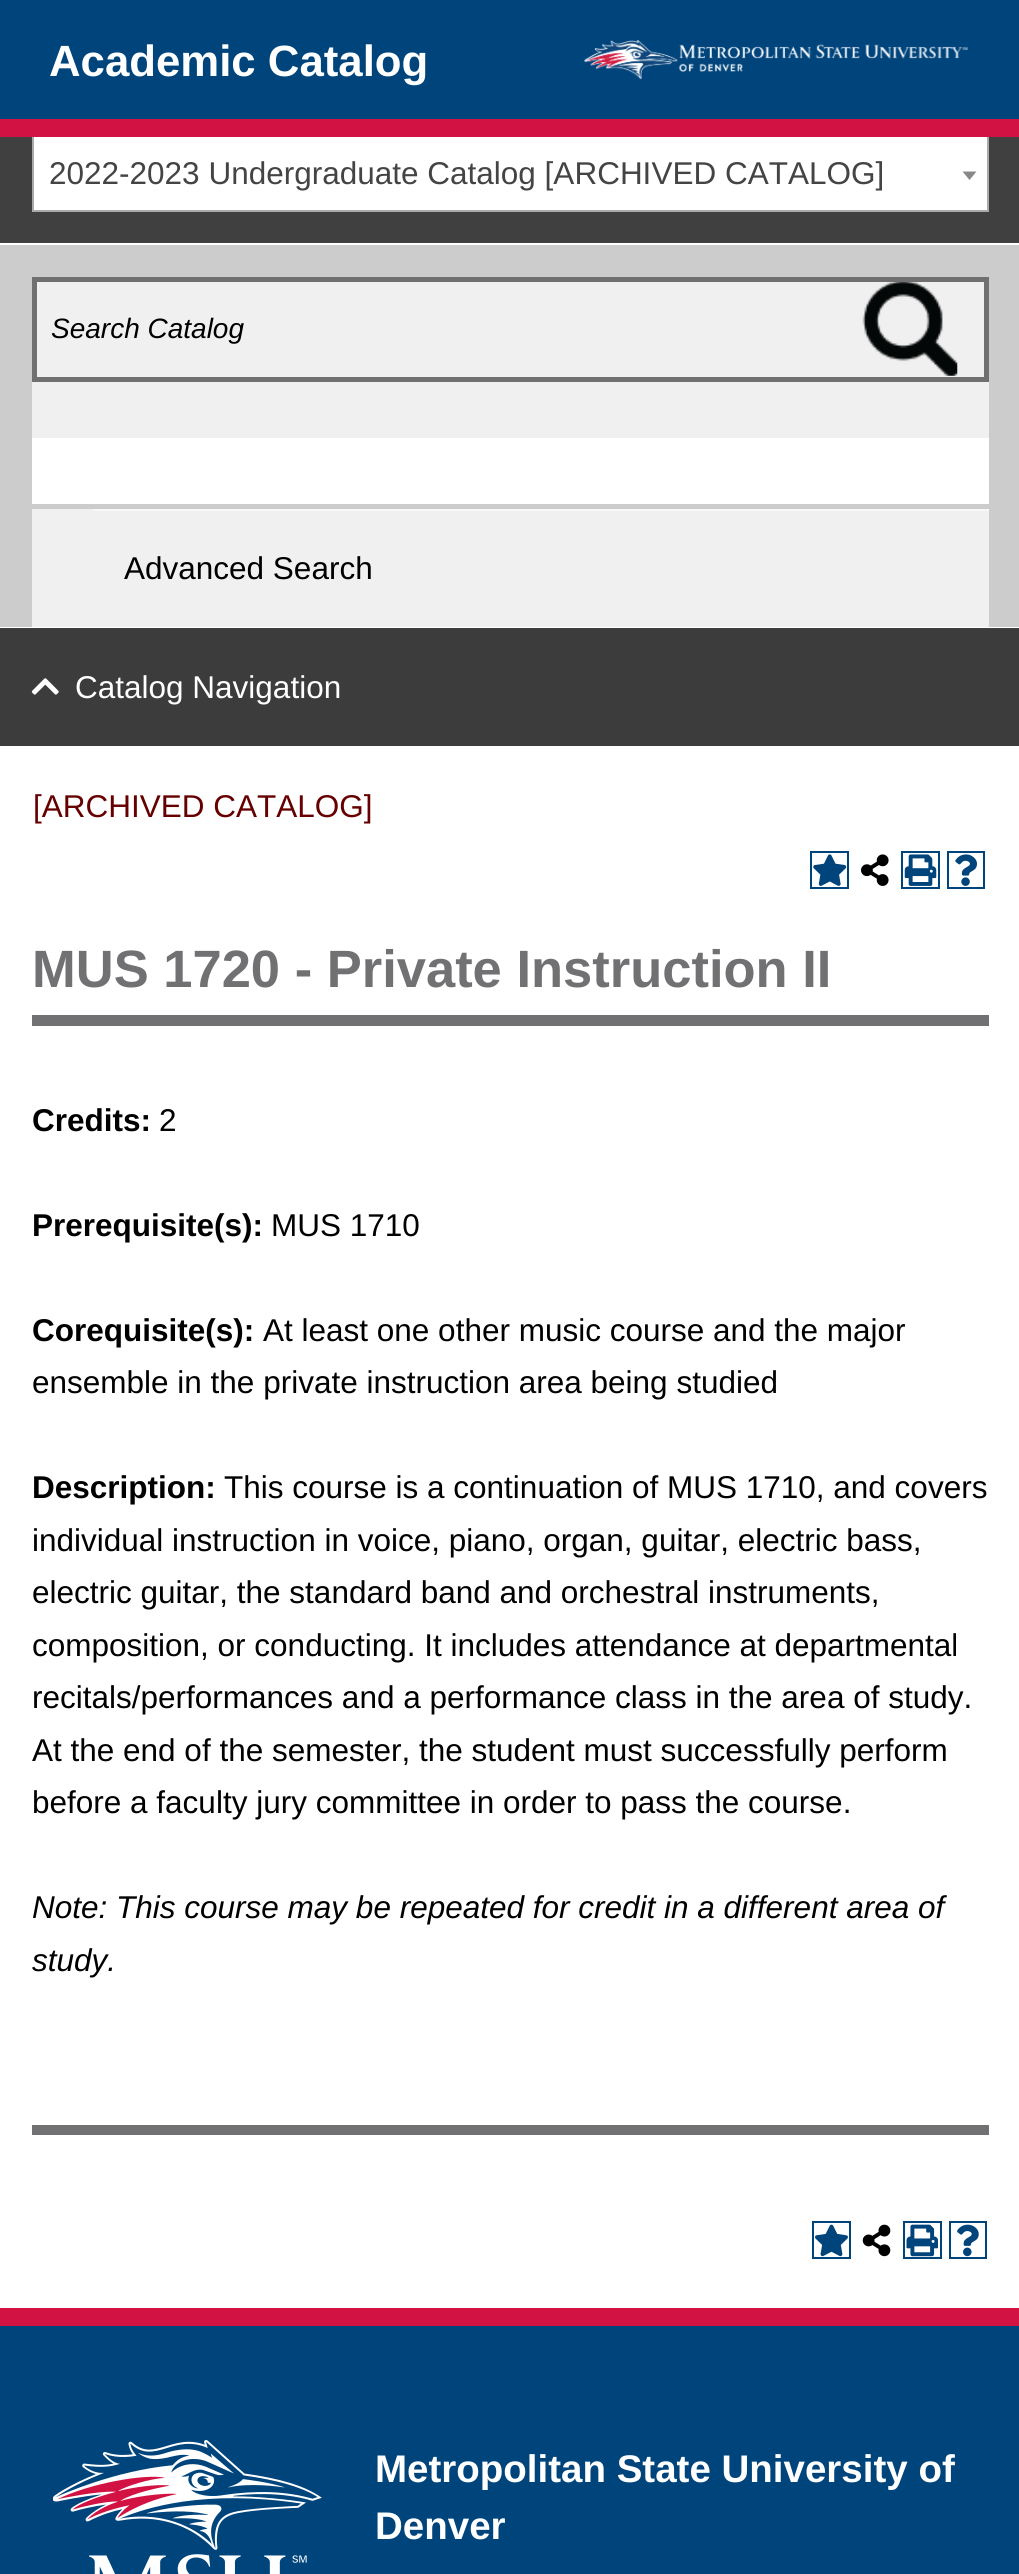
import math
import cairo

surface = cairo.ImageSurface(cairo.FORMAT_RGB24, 1019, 2574)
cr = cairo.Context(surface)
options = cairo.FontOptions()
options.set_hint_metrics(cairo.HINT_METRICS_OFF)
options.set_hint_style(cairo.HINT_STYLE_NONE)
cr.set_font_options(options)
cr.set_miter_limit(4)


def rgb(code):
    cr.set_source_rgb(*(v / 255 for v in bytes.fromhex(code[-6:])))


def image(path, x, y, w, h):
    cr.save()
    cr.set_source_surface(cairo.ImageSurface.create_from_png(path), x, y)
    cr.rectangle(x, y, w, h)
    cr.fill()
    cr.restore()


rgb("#ffffff")
cr.paint()
for x, y, w, h, color in [
    (0, 0, 1019, 119, "#00447c"),
    (0, 137, 1019, 106, "#404040"),
    (34, 137, 953, 73, "#ffffff"),
]:
    rgb(color)
    cr.rectangle(x, y, w, h)
    cr.fill()
cr.rectangle(33, 134, 955, 77)
rgb("#aaaaaa")
cr.stroke()
rgb("#d11242")
cr.rectangle(0, 119, 1019, 18)
cr.fill()
image("img/1.png", 584, 40, 384, 40)
rgb("#888888")
cr.new_path()
cr.move_to(962.5, 171.5)
cr.line_to(976.5, 171.5)
cr.line_to(969.5, 180)
cr.close_path()
cr.fill()
for x, y, w, h, color in [
    (0, 629, 1019, 117, "#3c3c3c"),
    (0, 245, 1019, 382, "#cccccc"),
    (0, 628, 1019, 1, "#404040"),
    (32, 438, 957, 66, "#ffffff"),
    (32, 282, 957, 156, "#f0f0f0"),
]:
    rgb(color)
    cr.rectangle(x, y, w, h)
    cr.fill()
image("img/2.png", 862, 282, 96, 94)
cr.rectangle(34.5, 279.5, 952, 100)
rgb("#707070")
cr.set_line_width(5)
cr.stroke()
rgb("#f0f0f0")
cr.rectangle(32, 509, 957, 118)
cr.fill()
rgb("#f8f8f8")
cr.rectangle(93, 509, 896, 2)
cr.fill()
image("img/3.png", 31, 678, 28, 17)
cr.rectangle(811, 852, 37, 36)
rgb("#00447c")
cr.set_line_width(2)
cr.stroke()
image("img/4.png", 813, 854, 34, 32)
image("img/5.png", 861, 854, 28, 32)
cr.rectangle(902, 852, 37, 36)
cr.stroke()
image("img/6.png", 904, 854, 33, 32)
cr.rectangle(948, 852, 36, 36)
cr.stroke()
image("img/7.png", 955, 854, 22, 32)
rgb("#717073")
cr.rectangle(32, 1015, 957, 11)
cr.fill()
cr.rectangle(32, 2125, 957, 10)
cr.fill()
cr.rectangle(813, 2222, 37, 36)
rgb("#00447c")
cr.stroke()
image("img/8.png", 815, 2224, 33, 33)
image("img/9.png", 862, 2224, 29, 33)
cr.rectangle(904, 2222, 37, 36)
cr.stroke()
image("img/10.png", 906, 2224, 32, 33)
cr.rectangle(950, 2222, 36, 36)
cr.stroke()
image("img/11.png", 957, 2224, 22, 33)
cr.rectangle(0, 2326, 1019, 248)
cr.fill()
rgb("#d11242")
cr.rectangle(0, 2308, 1019, 18)
cr.fill()
image("img/12.png", 53, 2440, 269, 134)
cr.select_font_face("Liberation Sans", cairo.FONT_SLANT_NORMAL, cairo.FONT_WEIGHT_BOLD)
cr.set_font_size(43.75)
rgb("#ffffff")
cr.move_to(49, 76)
cr.show_text("Academic Catalog")
cr.select_font_face("Liberation Sans")
cr.set_font_size(31.5)
rgb("#444444")
cr.move_to(49, 184)
cr.show_text("2022-2023 Undergraduate Catalog [ARCHIVED CATALOG]")
cr.select_font_face("Liberation Sans", cairo.FONT_SLANT_ITALIC)
cr.set_font_size(28)
rgb("#000000")
cr.move_to(51, 338)
cr.show_text("Search Catalog")
cr.select_font_face("Liberation Sans")
cr.set_font_size(31.5)
cr.move_to(124, 579)
cr.show_text("Advanced Search")
rgb("#ffffff")
cr.move_to(75, 698)
cr.show_text("Catalog Navigation")
rgb("#660000")
cr.move_to(33, 817)
cr.show_text("[ARCHIVED CATALOG]")
cr.select_font_face("Liberation Sans", cairo.FONT_SLANT_NORMAL, cairo.FONT_WEIGHT_BOLD)
cr.set_font_size(52.5)
rgb("#717073")
cr.move_to(32, 987)
cr.show_text("MUS 1720 - Private Instruction II")
cr.set_font_size(31.5)
rgb("#000000")
cr.move_to(32, 1131)
cr.show_text("Credits:")
cr.select_font_face("Liberation Sans")
cr.move_to(159, 1131)
cr.show_text("2")
cr.select_font_face("Liberation Sans", cairo.FONT_SLANT_NORMAL, cairo.FONT_WEIGHT_BOLD)
cr.move_to(32, 1236)
cr.show_text("Prerequisite(s):")
cr.select_font_face("Liberation Sans")
cr.move_to(271, 1236)
cr.show_text("MUS 1710")
cr.select_font_face("Liberation Sans", cairo.FONT_SLANT_NORMAL, cairo.FONT_WEIGHT_BOLD)
cr.move_to(32, 1341)
cr.show_text("Corequisite(s):")
cr.select_font_face("Liberation Sans")
cr.move_to(263, 1341)
cr.show_text("At least one other music course and the major")
cr.move_to(32, 1393)
cr.show_text("ensemble in the private instruction area being studied")
cr.select_font_face("Liberation Sans", cairo.FONT_SLANT_NORMAL, cairo.FONT_WEIGHT_BOLD)
cr.move_to(32, 1498)
cr.show_text("Description:")
cr.select_font_face("Liberation Sans")
for x, y, s in [
    (224, 1498, "This course is a continuation of MUS 1710, and covers"),
    (32, 1551, "individual instruction in voice, piano, organ, guitar, electric bass,"),
    (32, 1603, "electric guitar, the standard band and orchestral instruments,"),
    (32, 1656, "composition, or conducting. It includes attendance at departmental"),
    (32, 1708, "recitals/performances and a performance class in the area of study."),
    (32, 1761, "At the end of the semester, the student must successfully perform"),
    (32, 1813, "before a faculty jury committee in order to pass the course."),
]:
    cr.move_to(x, y)
    cr.show_text(s)
cr.select_font_face("Liberation Sans", cairo.FONT_SLANT_ITALIC)
cr.move_to(32, 1918)
cr.show_text("Note: This course may be repeated for credit in a different area of")
cr.move_to(32, 1971)
cr.show_text("study.")
cr.select_font_face("Liberation Sans", cairo.FONT_SLANT_NORMAL, cairo.FONT_WEIGHT_BOLD)
cr.set_font_size(38.5)
rgb("#ffffff")
cr.move_to(375, 2482)
cr.show_text("Metropolitan State University of")
cr.move_to(375, 2539)
cr.show_text("Denver")
surface.write_to_png("page.png")
